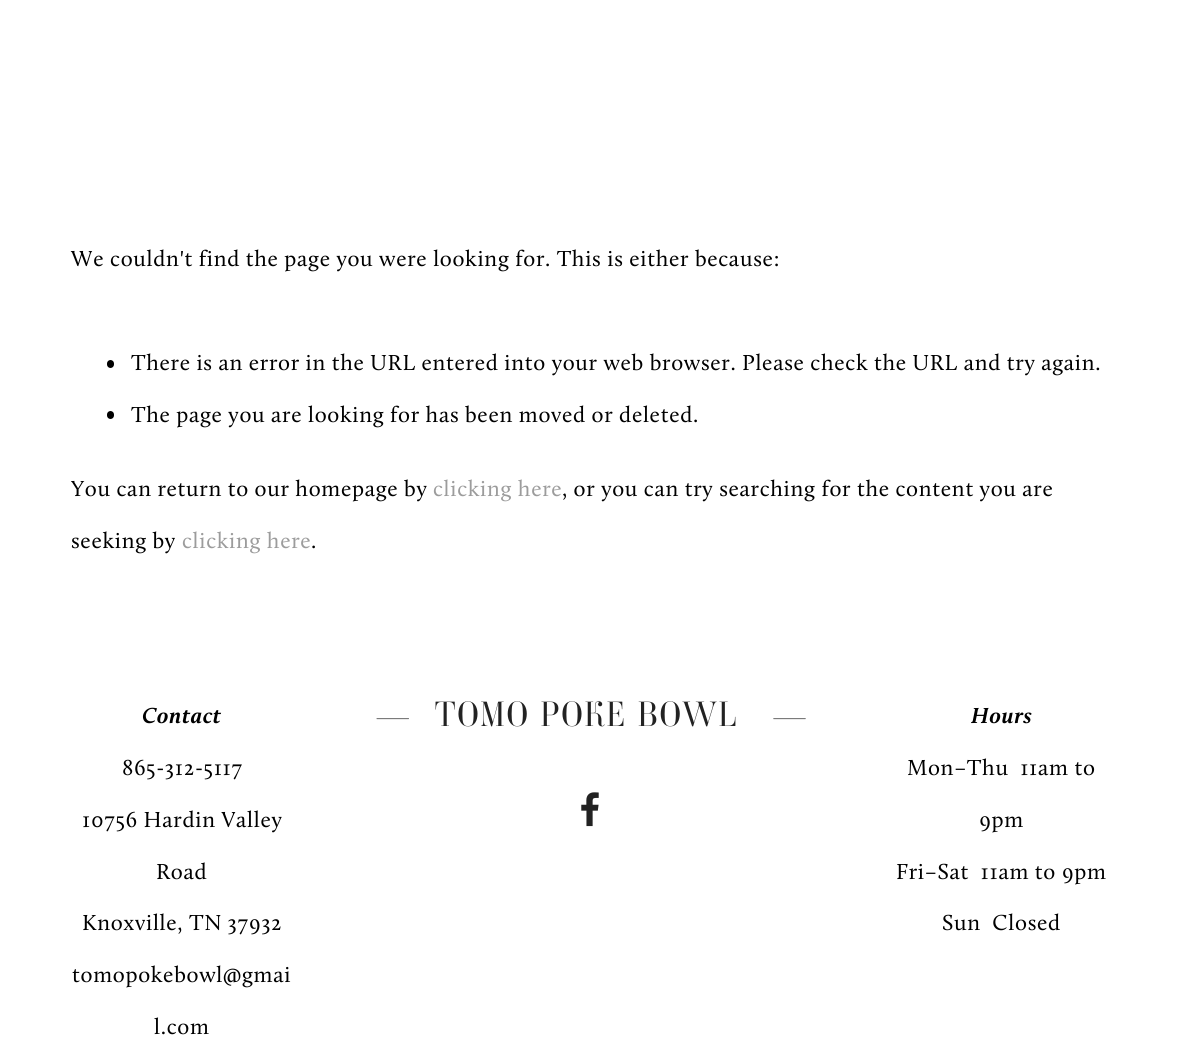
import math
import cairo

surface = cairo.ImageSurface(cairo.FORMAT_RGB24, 1183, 1052)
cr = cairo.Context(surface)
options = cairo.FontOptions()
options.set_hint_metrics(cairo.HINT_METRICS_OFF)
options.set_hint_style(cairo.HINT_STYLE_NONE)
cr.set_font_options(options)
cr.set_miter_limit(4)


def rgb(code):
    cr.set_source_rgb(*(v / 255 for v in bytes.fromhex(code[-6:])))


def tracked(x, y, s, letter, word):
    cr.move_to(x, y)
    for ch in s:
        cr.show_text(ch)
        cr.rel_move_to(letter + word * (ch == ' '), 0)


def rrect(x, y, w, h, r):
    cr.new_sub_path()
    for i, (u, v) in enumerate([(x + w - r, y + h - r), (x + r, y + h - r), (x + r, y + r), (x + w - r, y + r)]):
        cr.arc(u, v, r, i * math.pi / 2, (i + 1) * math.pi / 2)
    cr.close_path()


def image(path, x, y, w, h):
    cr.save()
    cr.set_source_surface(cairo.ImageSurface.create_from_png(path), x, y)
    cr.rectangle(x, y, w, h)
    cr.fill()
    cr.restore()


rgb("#ffffff")
cr.paint()
rgb("#000000")
rrect(107, 360, 7, 8, 3.5)
cr.fill()
rrect(107, 411, 7, 8, 3.5)
cr.fill()
image("img/1.png", 581, 792, 18, 35)
cr.select_font_face("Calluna")
cr.set_font_size(22.5)
for x, y, s in [
    (71, 266, "We couldn't find the page you were looking for. This is either because:"),
    (131, 370, "There is an error in the URL entered into your web browser. Please check the URL and try again."),
    (131, 422, "The page you are looking for has been moved or deleted."),
    (71, 496, "You can return to our homepage by"),
]:
    tracked(x, y, s, 0.68, 0)
rgb("#9c9c9c")
tracked(433, 496, "clicking here", 0.68, 0)
rgb("#000000")
tracked(562, 496, ", or you can try searching for the content you are", 0.68, 0)
tracked(71, 548, "seeking by", 0.68, 0)
rgb("#9c9c9c")
tracked(182, 548, "clicking here", 0.68, 0)
rgb("#000000")
tracked(311, 548, ".", 0.68, 0)
cr.select_font_face("Calluna", cairo.FONT_SLANT_ITALIC, cairo.FONT_WEIGHT_BOLD)
tracked(142, 723, "Contact", 0.68, 0)
cr.select_font_face("Calluna")
for x, y, s in [
    (122, 775, "865-312-5117"),
    (82, 827, "10756 Hardin Valley"),
    (156, 879, "Road"),
    (82, 930, "Knoxville, TN 37932"),
    (72, 982, "tomopokebowl@gmai"),
    (154, 1034, "l.com"),
]:
    tracked(x, y, s, 0.68, 0)
cr.select_font_face("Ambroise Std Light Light")
cr.set_font_size(34.5)
rgb("#222222")
tracked(374, 726, "—  TOMO POKE BOWL   —", 1.4, 0)
cr.select_font_face("Calluna", cairo.FONT_SLANT_ITALIC, cairo.FONT_WEIGHT_BOLD)
cr.set_font_size(22.5)
rgb("#000000")
tracked(971, 723, "Hours", 0.68, 0)
cr.select_font_face("Calluna")
for x, y, s in [
    (907, 775, "Mon–Thu  11am to"),
    (979, 827, "9pm"),
    (896, 879, "Fri–Sat  11am to 9pm"),
    (942, 930, "Sun  Closed"),
]:
    tracked(x, y, s, 0.68, 0)
surface.write_to_png("page.png")
